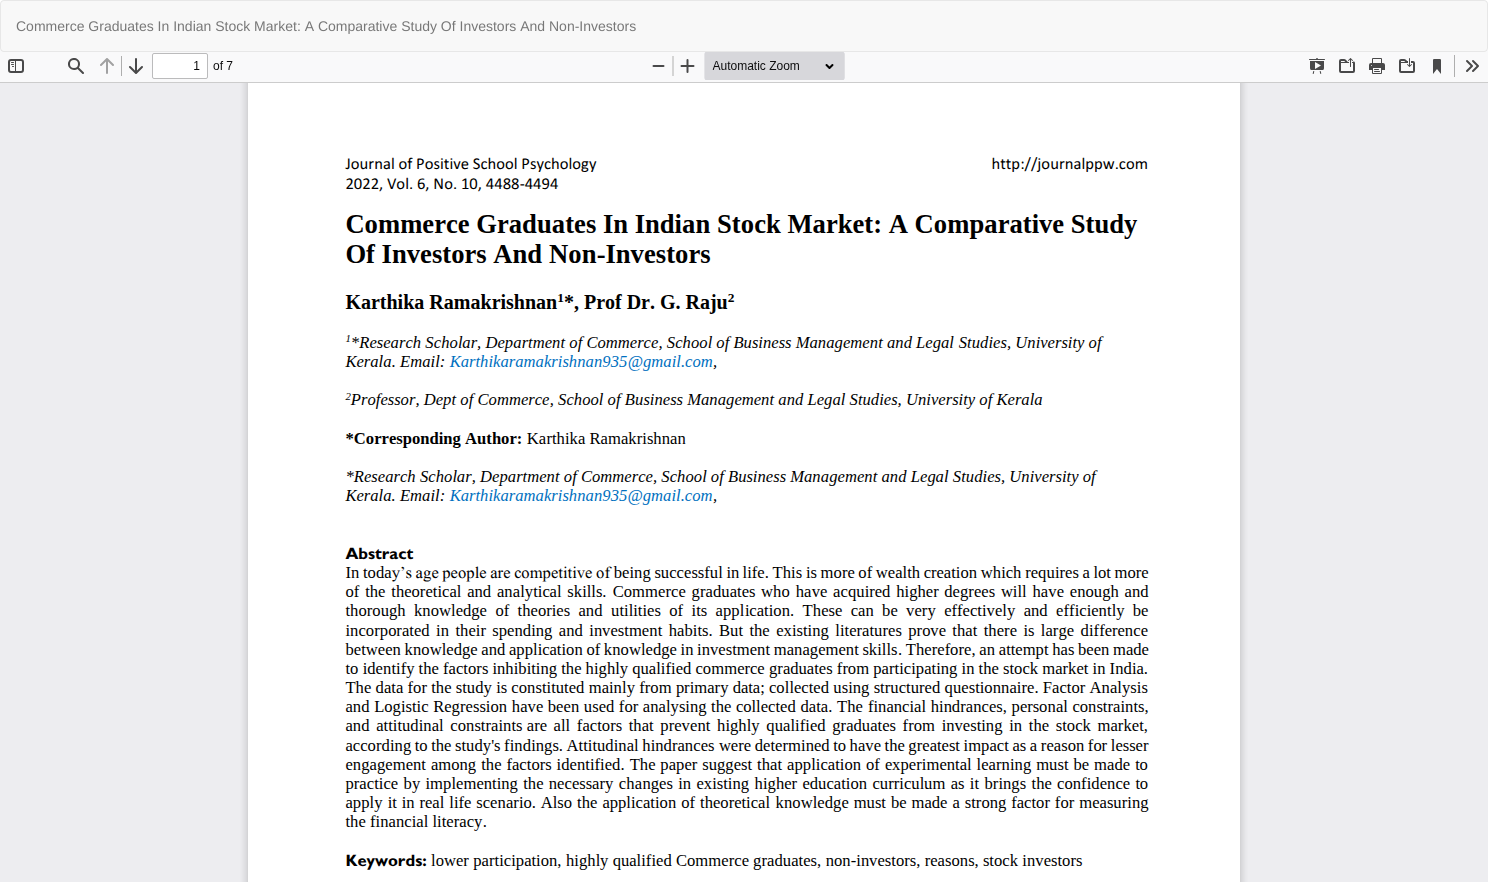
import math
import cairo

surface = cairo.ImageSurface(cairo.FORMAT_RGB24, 1488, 882)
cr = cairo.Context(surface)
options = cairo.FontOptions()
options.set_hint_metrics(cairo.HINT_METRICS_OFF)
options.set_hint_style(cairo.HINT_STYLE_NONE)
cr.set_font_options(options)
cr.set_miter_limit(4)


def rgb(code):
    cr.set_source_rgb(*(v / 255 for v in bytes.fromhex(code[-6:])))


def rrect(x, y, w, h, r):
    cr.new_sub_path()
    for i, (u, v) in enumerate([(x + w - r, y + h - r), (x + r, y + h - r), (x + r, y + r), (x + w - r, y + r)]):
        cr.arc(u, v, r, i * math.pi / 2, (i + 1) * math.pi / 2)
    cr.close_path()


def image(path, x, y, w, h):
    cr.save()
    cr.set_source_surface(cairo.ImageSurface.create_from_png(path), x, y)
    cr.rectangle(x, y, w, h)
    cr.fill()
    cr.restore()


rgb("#ffffff")
cr.paint()
image("img/1.png", 0, 50, 1488, 832)
rgb("#f8f8f8")
rrect(0.5, 0.5, 1487, 51, 3.5)
cr.fill_preserve()
rgb("#e7e7e7")
cr.set_line_width(1)
cr.stroke()
cr.select_font_face("Liberation Sans")
cr.set_font_size(14)
rgb("#777777")
cr.move_to(16, 31)
cr.show_text("Commerce Graduates In Indian Stock Market: A Comparative Study Of Investors And Non-Investors")
surface.write_to_png("page.png")
